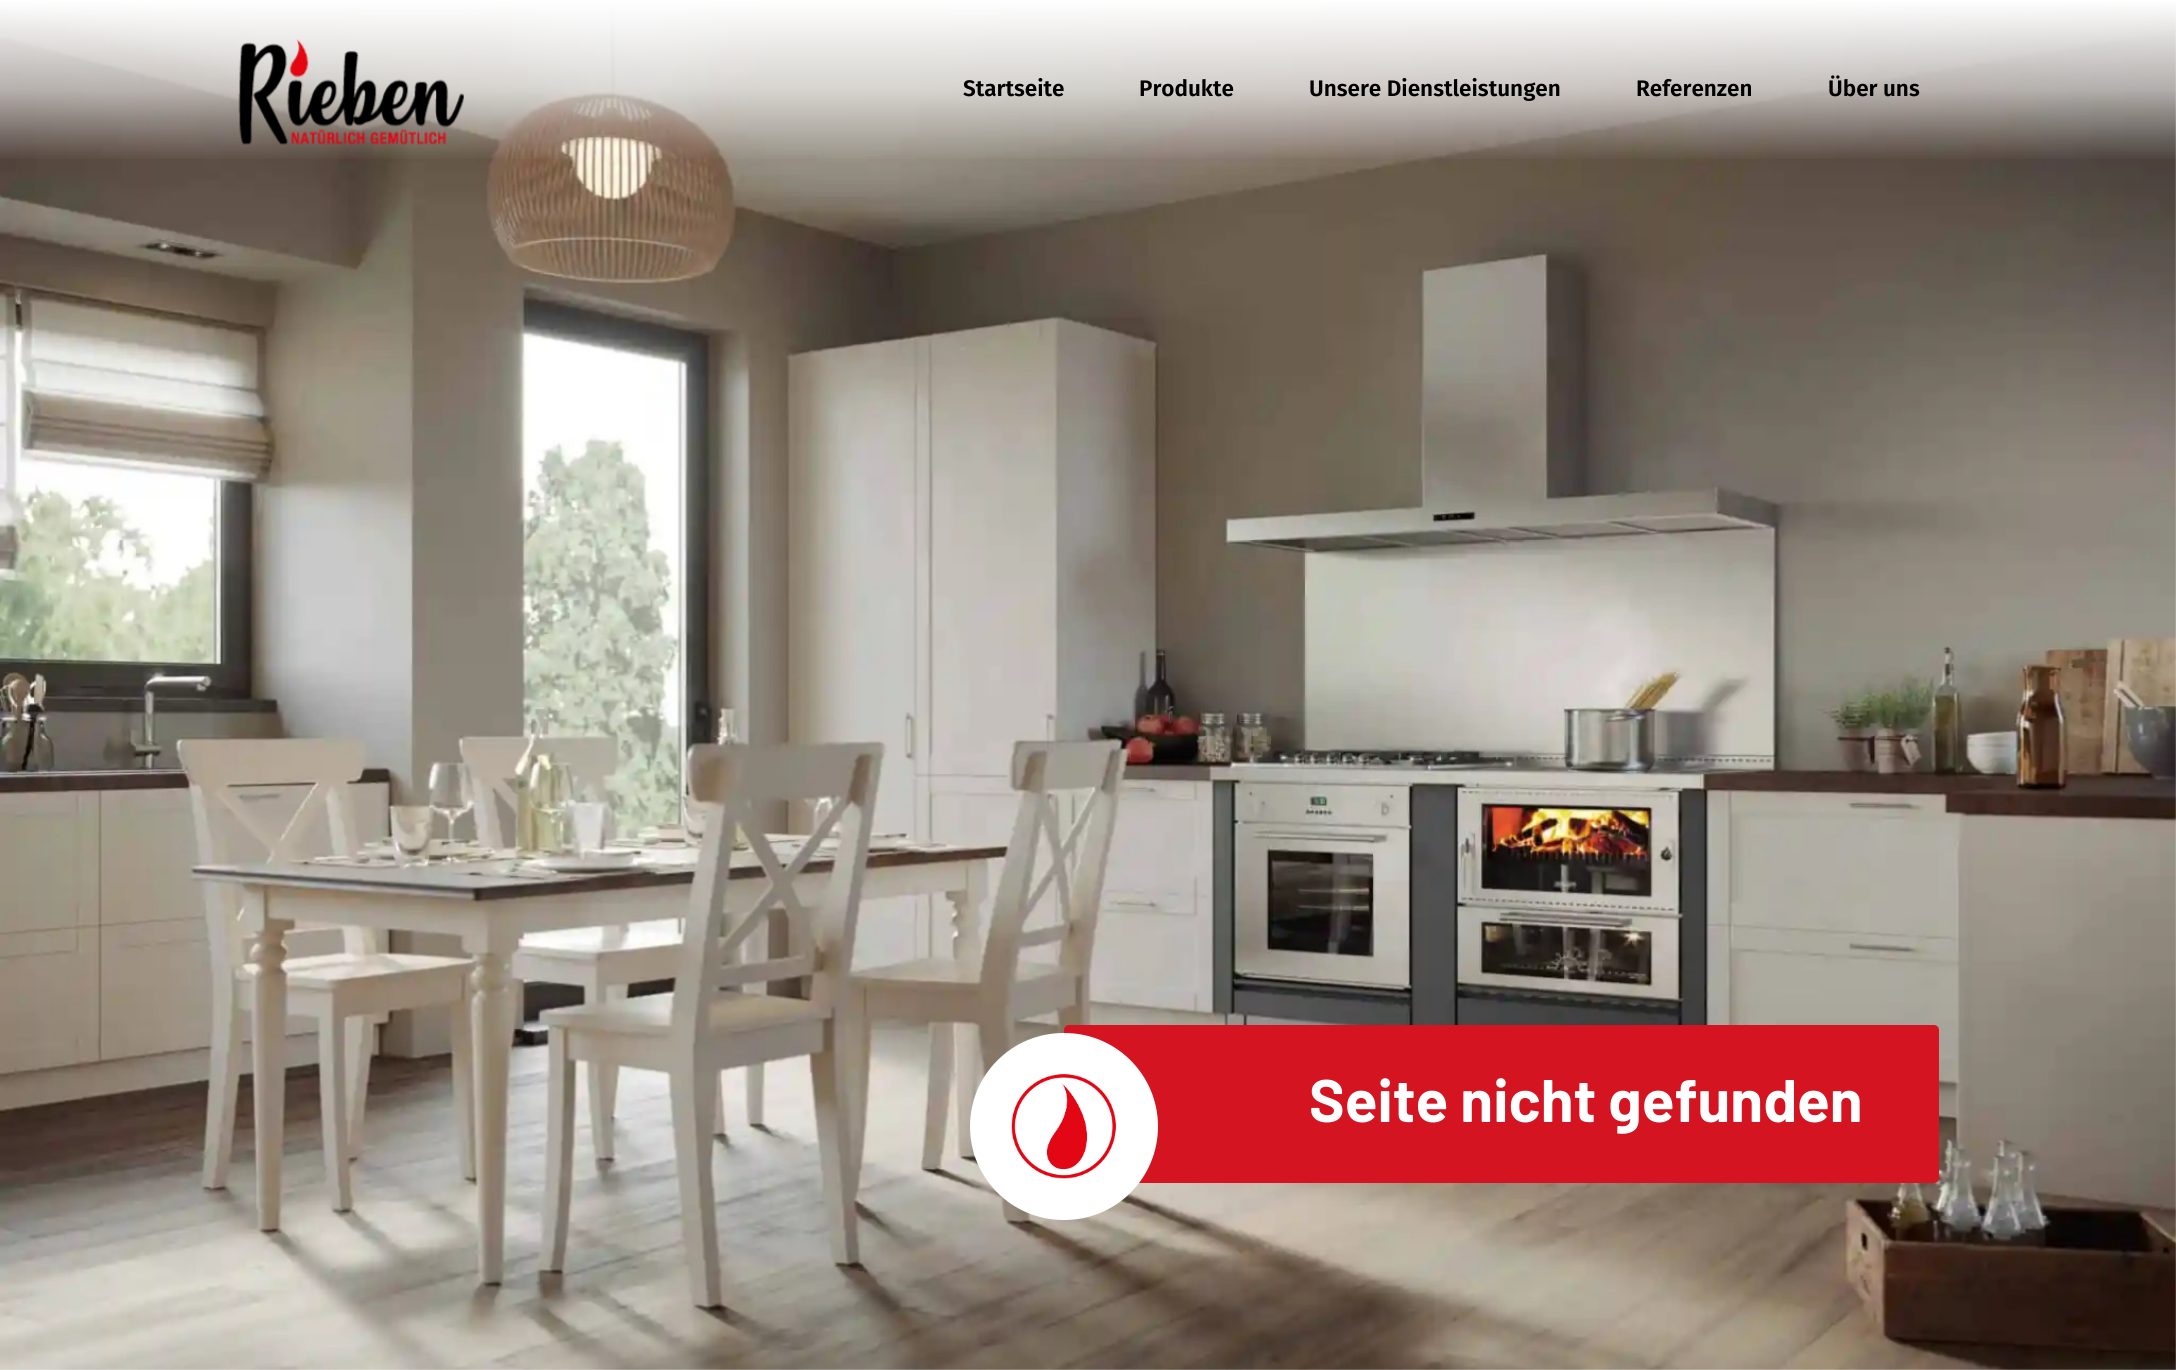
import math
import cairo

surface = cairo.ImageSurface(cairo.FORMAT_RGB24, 2176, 1370)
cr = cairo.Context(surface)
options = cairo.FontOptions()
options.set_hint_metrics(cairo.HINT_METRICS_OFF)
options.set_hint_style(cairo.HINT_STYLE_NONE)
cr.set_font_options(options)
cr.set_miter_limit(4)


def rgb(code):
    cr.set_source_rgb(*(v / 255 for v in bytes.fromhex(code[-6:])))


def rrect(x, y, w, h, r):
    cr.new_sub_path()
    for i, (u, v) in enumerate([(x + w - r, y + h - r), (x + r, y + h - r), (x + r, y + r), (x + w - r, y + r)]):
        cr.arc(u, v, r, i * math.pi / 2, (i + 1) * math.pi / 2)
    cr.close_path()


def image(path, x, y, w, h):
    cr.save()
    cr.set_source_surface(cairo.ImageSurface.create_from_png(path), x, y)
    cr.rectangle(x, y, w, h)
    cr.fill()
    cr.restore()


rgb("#ffffff")
cr.paint()
image("img/2.png", 0, 1, 2176, 1369)
gradient = cairo.LinearGradient(1088, 0, 1088, 179)
gradient.add_color_stop_rgba(0, 1, 1, 1, 1)
gradient.add_color_stop_rgba(0.5, 1, 1, 1, 0.6)
gradient.add_color_stop_rgba(0.9, 1, 1, 1, 0)
gradient.add_color_stop_rgba(1, 0, 0, 0, 0)
cr.set_source(gradient)
cr.rectangle(0, 1, 2176, 158)
cr.fill()
image("img/1.png", 238, 39, 226, 106)
rgb("#d51421")
rrect(1064, 1025, 875, 158, 5)
cr.fill()
rgb("#ffffff")
rrect(970, 1033, 188, 187, 93.5)
cr.fill()
image("img/3.png", 1011, 1074, 105, 105)
cr.select_font_face("Fira Sans SemiBold")
cr.set_font_size(22.5)
rgb("#000000")
for x, y, s in [
    (963, 96, "Startseite"),
    (1139, 96, "Produkte"),
    (1309, 96, "Unsere Dienstleistungen"),
    (1636, 96, "Referenzen"),
    (1828, 96, "Über uns"),
]:
    cr.move_to(x, y)
    cr.show_text(s)
cr.select_font_face("Barlow", cairo.FONT_SLANT_NORMAL, cairo.FONT_WEIGHT_BOLD)
cr.set_font_size(60)
rgb("#ffffff")
cr.move_to(1309, 1122)
cr.show_text("Seite nicht gefunden")
surface.write_to_png("page.png")
